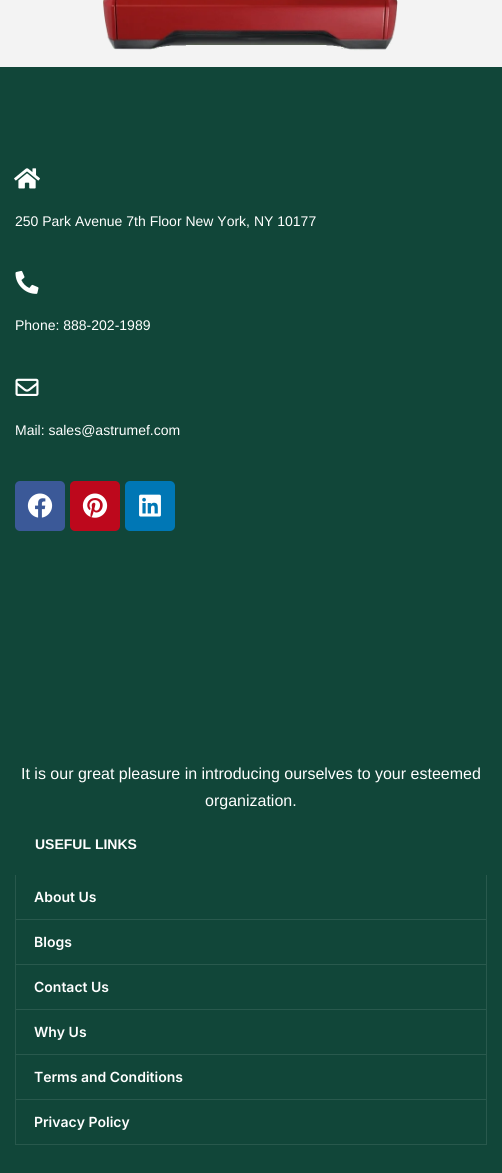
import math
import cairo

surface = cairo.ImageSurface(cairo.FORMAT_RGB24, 502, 1173)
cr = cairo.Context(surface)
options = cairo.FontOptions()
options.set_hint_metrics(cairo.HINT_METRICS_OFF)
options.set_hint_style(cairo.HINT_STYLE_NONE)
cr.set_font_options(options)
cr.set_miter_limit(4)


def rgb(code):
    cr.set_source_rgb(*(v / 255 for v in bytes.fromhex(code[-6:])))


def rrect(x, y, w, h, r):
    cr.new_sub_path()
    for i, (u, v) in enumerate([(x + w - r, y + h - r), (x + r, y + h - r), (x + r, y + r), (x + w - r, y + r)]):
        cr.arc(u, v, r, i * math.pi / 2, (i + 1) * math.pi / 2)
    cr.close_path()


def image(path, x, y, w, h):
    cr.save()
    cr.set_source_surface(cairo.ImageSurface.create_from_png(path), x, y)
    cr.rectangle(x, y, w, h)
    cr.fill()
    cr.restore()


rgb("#114639")
cr.paint()
rgb("#f3f3f3")
cr.rectangle(0, 0, 502, 67)
cr.fill()
image("img/1.png", 103, 0, 295, 51)
image("img/2.png", 14, 168, 26, 21)
image("img/3.png", 15, 270, 24, 24)
image("img/4.png", 15, 378, 24, 18)
rgb("#3b5998")
rrect(15, 481, 50, 50, 5)
cr.fill()
image("img/5.png", 27, 493, 26, 25)
rgb("#bd081c")
rrect(70, 481, 50, 50, 5)
cr.fill()
image("img/6.png", 82, 493, 26, 25)
rgb("#0077b5")
rrect(125, 481, 50, 50, 5)
cr.fill()
image("img/7.png", 139, 494, 22, 23)
rgb("#29594d")
cr.new_path()
cr.move_to(487, 875)
cr.line_to(487, 1145)
cr.line_to(486, 1144)
cr.line_to(486, 875)
cr.close_path()
cr.fill()
cr.set_source_rgba(1, 1, 1, 0.1)
cr.new_path()
cr.move_to(487, 1145)
cr.line_to(15, 1145)
cr.line_to(16, 1144)
cr.line_to(486, 1144)
cr.close_path()
cr.fill()
cr.new_path()
cr.move_to(15, 1145)
cr.line_to(15, 875)
cr.line_to(16, 875)
cr.line_to(16, 1144)
cr.close_path()
cr.fill()
for x, y, w, h, color in [
    (16, 919, 470, 1, "#29594d"),
    (16, 964, 470, 1, "#29594d"),
    (16, 1009, 470, 1, "#29594d"),
    (16, 1054, 470, 1, "#29594d"),
    (16, 1099, 470, 1, "#29594d"),
]:
    rgb(color)
    cr.rectangle(x, y, w, h)
    cr.fill()
cr.select_font_face("Liberation Sans")
cr.set_font_size(14)
rgb("#ffffff")
for x, y, s in [
    (15, 226, "250 Park Avenue 7th Floor New York, NY 10177"),
    (15, 330, "Phone: 888-202-1989"),
    (15, 435, "Mail: sales@astrumef.com"),
]:
    cr.move_to(x, y)
    cr.show_text(s)
cr.set_font_size(16)
cr.move_to(21, 779)
cr.show_text("It is our great pleasure in introducing ourselves to your esteemed")
cr.move_to(205, 806)
cr.show_text("organization.")
cr.select_font_face("Liberation Sans", cairo.FONT_SLANT_NORMAL, cairo.FONT_WEIGHT_BOLD)
cr.set_font_size(14)
cr.move_to(35, 849)
cr.show_text("USEFUL LINKS")
cr.select_font_face("Inter SemiBold")
for x, y, s in [
    (34, 902, "About Us"),
    (34, 947, "Blogs"),
    (34, 992, "Contact Us"),
    (34, 1037, "Why Us"),
    (34, 1082, "Terms and Conditions"),
    (34, 1127, "Privacy Policy"),
]:
    cr.move_to(x, y)
    cr.show_text(s)
surface.write_to_png("page.png")
